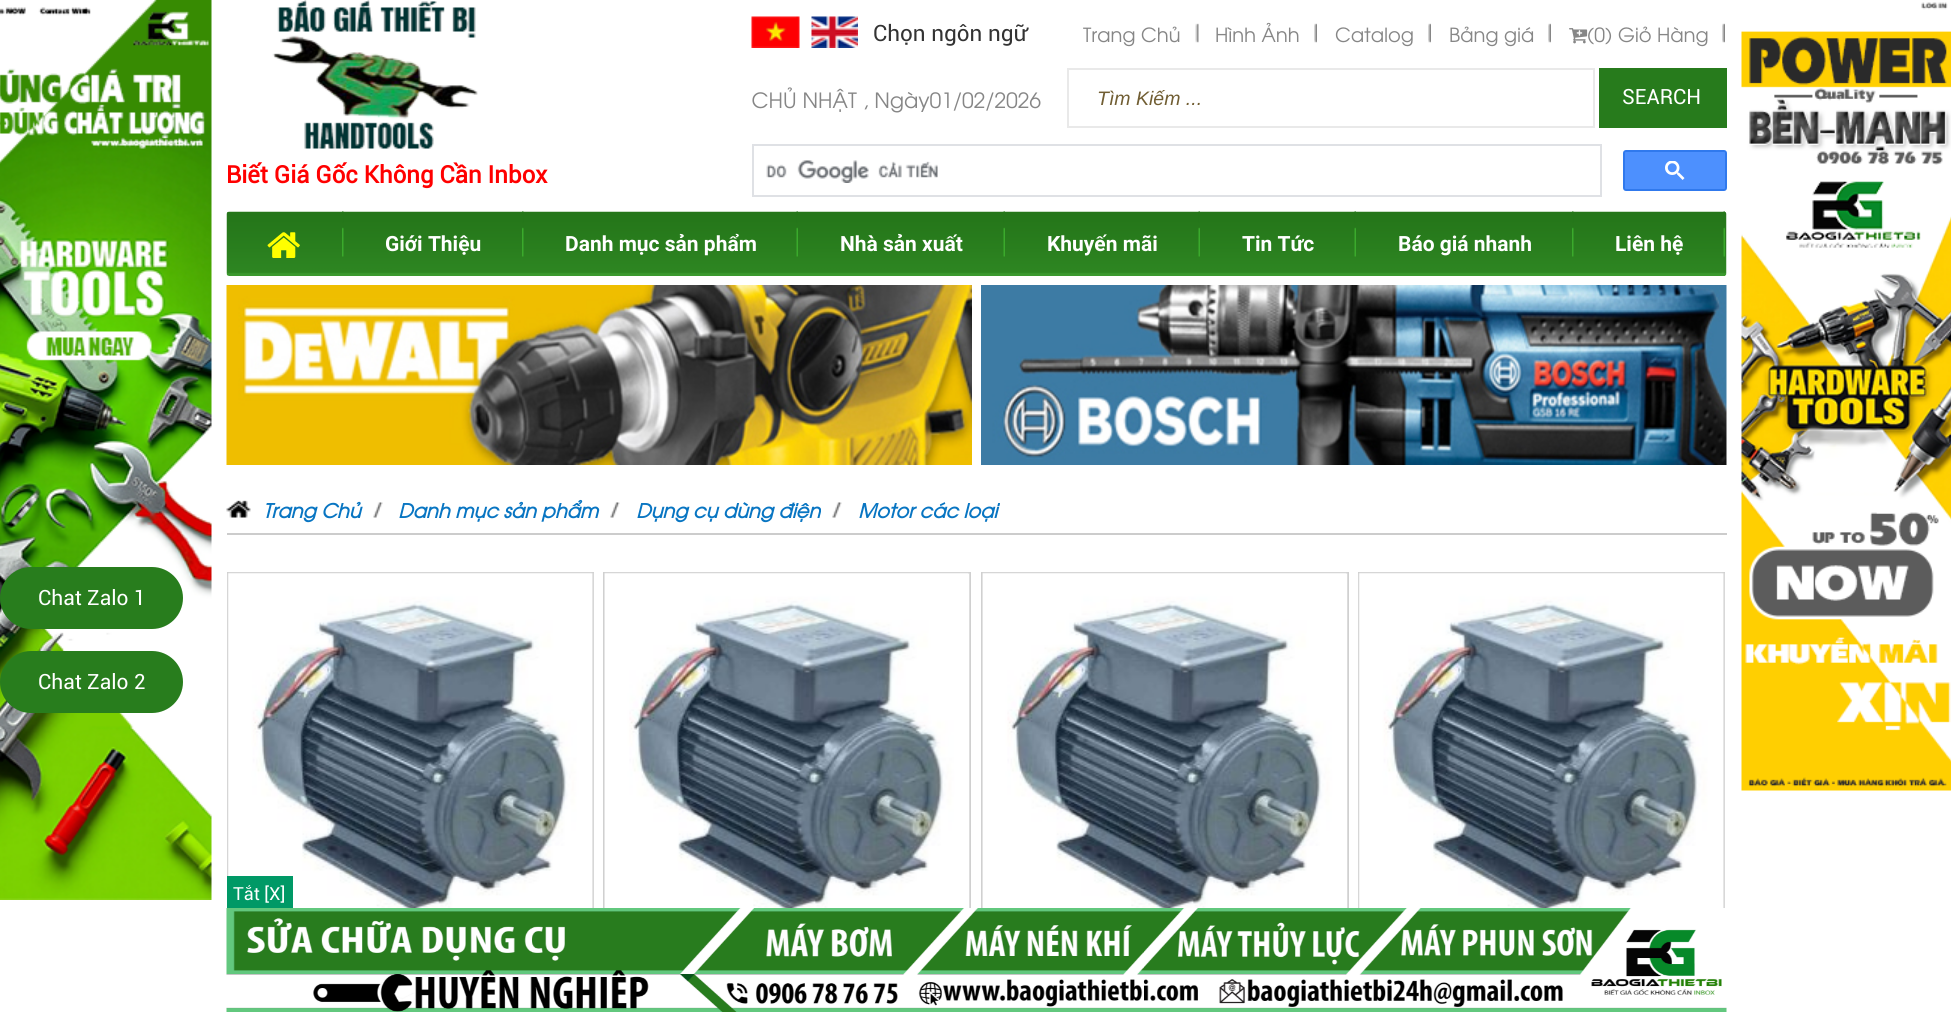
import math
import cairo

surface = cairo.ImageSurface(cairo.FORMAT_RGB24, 1951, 1012)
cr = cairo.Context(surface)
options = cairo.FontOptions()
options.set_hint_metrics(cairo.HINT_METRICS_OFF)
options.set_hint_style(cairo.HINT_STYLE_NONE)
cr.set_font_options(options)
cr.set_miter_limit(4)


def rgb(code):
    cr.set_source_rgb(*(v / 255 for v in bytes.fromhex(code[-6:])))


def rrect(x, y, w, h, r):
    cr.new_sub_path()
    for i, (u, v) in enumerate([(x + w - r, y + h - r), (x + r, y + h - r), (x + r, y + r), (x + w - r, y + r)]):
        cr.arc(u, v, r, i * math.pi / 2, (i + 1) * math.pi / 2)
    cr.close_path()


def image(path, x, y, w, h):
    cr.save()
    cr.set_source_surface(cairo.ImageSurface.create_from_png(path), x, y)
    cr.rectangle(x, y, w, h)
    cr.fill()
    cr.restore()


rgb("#ffffff")
cr.paint()
image("img/1.png", 0, 0, 212, 900)
rgb("#287d1d")
rrect(0, 567, 183, 62, 31)
cr.fill()
rrect(0, 651, 183, 62, 31)
cr.fill()
image("img/2.png", 1741, 2, 210, 789)
image("img/3.png", 751, 16, 49, 32)
image("img/4.png", 811, 16, 47, 32)
image("img/5.png", 1195, 23, 4, 20)
image("img/6.png", 1083, 26, 97, 21)
image("img/7.png", 1314, 23, 3, 20)
image("img/8.png", 1216, 22, 83, 20)
image("img/7.png", 1428, 23, 3, 20)
image("img/9.png", 1335, 27, 78, 20)
image("img/7.png", 1548, 23, 3, 20)
image("img/10.png", 1450, 26, 84, 21)
image("img/7.png", 1722, 23, 3, 20)
image("img/11.png", 1569, 28, 19, 16)
image("img/12.png", 1588, 27, 24, 18)
image("img/13.png", 1618, 26, 90, 21)
image("img/14.png", 752, 87, 289, 26)
cr.rectangle(1068, 69, 526, 58)
rgb("#e9e9e9")
cr.stroke()
rgb("#277b1c")
cr.rectangle(1599, 68, 128, 60)
cr.fill()
cr.rectangle(753, 145, 848, 51)
rgb("#dfe1e5")
cr.stroke()
image("img/15.png", 766, 160, 172, 23)
rgb("#4d90fe")
rrect(1624, 151, 102, 39, 2)
cr.fill_preserve()
rgb("#3079ed")
cr.stroke()
image("img/16.png", 1665, 161, 20, 19)
image("img/17.png", 272, 0, 206, 149)
image("img/18.png", 226, 211, 1501, 65)
image("img/19.png", 342, 211, 2, 46)
image("img/20.png", 267, 232, 33, 26)
image("img/19.png", 522, 211, 2, 46)
image("img/21.png", 796, 211, 2, 46)
image("img/21.png", 1003, 211, 2, 46)
image("img/21.png", 1198, 211, 2, 46)
image("img/21.png", 1354, 211, 2, 46)
image("img/19.png", 1572, 211, 2, 46)
image("img/22.png", 1723, 211, 2, 65)
image("img/23.png", 226, 285, 746, 180)
image("img/24.png", 981, 285, 746, 180)
image("img/25.png", 226, 500, 25, 18)
rgb("#cccccc")
cr.rectangle(227, 533, 1500, 2)
cr.fill()
image("img/26.png", 373, 502, 10, 16)
image("img/27.png", 610, 502, 10, 16)
image("img/27.png", 832, 502, 10, 16)
cr.rectangle(228, 573, 365, 380)
rgb("#d0d0d0")
cr.stroke()
image("img/28.png", 227, 572, 367, 336)
cr.rectangle(604, 573, 366, 380)
cr.stroke()
image("img/29.png", 604, 572, 366, 336)
cr.rectangle(982, 573, 366, 380)
cr.stroke()
image("img/30.png", 982, 572, 366, 336)
cr.rectangle(1359, 573, 365, 380)
cr.stroke()
image("img/31.png", 1358, 572, 367, 336)
rgb("#009966")
cr.rectangle(227, 876, 66, 32)
cr.fill()
image("img/32.png", 226, 908, 1501, 104)
cr.select_font_face("Roboto")
cr.set_font_size(21)
rgb("#ffffff")
cr.move_to(38, 605)
cr.show_text("Chat Zalo 1")
cr.move_to(38, 689)
cr.show_text("Chat Zalo 2")
cr.set_font_size(22.5)
rgb("#333333")
cr.move_to(873, 41)
cr.show_text("Chọn ngôn ngữ")
cr.select_font_face("Liberation Sans", cairo.FONT_SLANT_ITALIC)
cr.set_font_size(19.5)
rgb("#715e33")
cr.move_to(1097, 105)
cr.show_text("Tìm Kiếm ...")
cr.select_font_face("Roboto")
cr.set_font_size(21)
rgb("#ffffff")
cr.move_to(1622, 104)
cr.show_text("SEARCH")
cr.select_font_face("Roboto", cairo.FONT_SLANT_NORMAL, cairo.FONT_WEIGHT_BOLD)
cr.set_font_size(24)
rgb("#ff0000")
cr.move_to(226, 183)
cr.show_text("Biết Giá Gốc Không Cần Inbox")
cr.select_font_face("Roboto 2", cairo.FONT_SLANT_NORMAL, cairo.FONT_WEIGHT_BOLD)
cr.set_font_size(21)
rgb("#ffffff")
for x, y, s in [
    (385, 251, "Giới Thiệu"),
    (565, 251, "Danh mục sản phẩm"),
    (840, 251, "Nhà sản xuất"),
    (1047, 251, "Khuyến mãi"),
    (1242, 251, "Tin Tức"),
    (1398, 251, "Báo giá nhanh"),
    (1615, 251, "Liên hệ"),
]:
    cr.move_to(x, y)
    cr.show_text(s)
cr.select_font_face("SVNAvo", cairo.FONT_SLANT_ITALIC, cairo.FONT_WEIGHT_BOLD)
cr.set_font_size(19.5)
rgb("#0875c2")
for x, y, s in [
    (263, 518, "Trang Chủ"),
    (398, 518, "Danh mục sản phẩm"),
    (636, 518, "Dụng cụ dùng điện"),
    (858, 518, "Motor các loại"),
]:
    cr.move_to(x, y)
    cr.show_text(s)
cr.select_font_face("Roboto")
cr.set_font_size(18)
rgb("#ffffff")
cr.move_to(233, 900)
cr.show_text("Tắt [X]")
surface.write_to_png("page.png")
